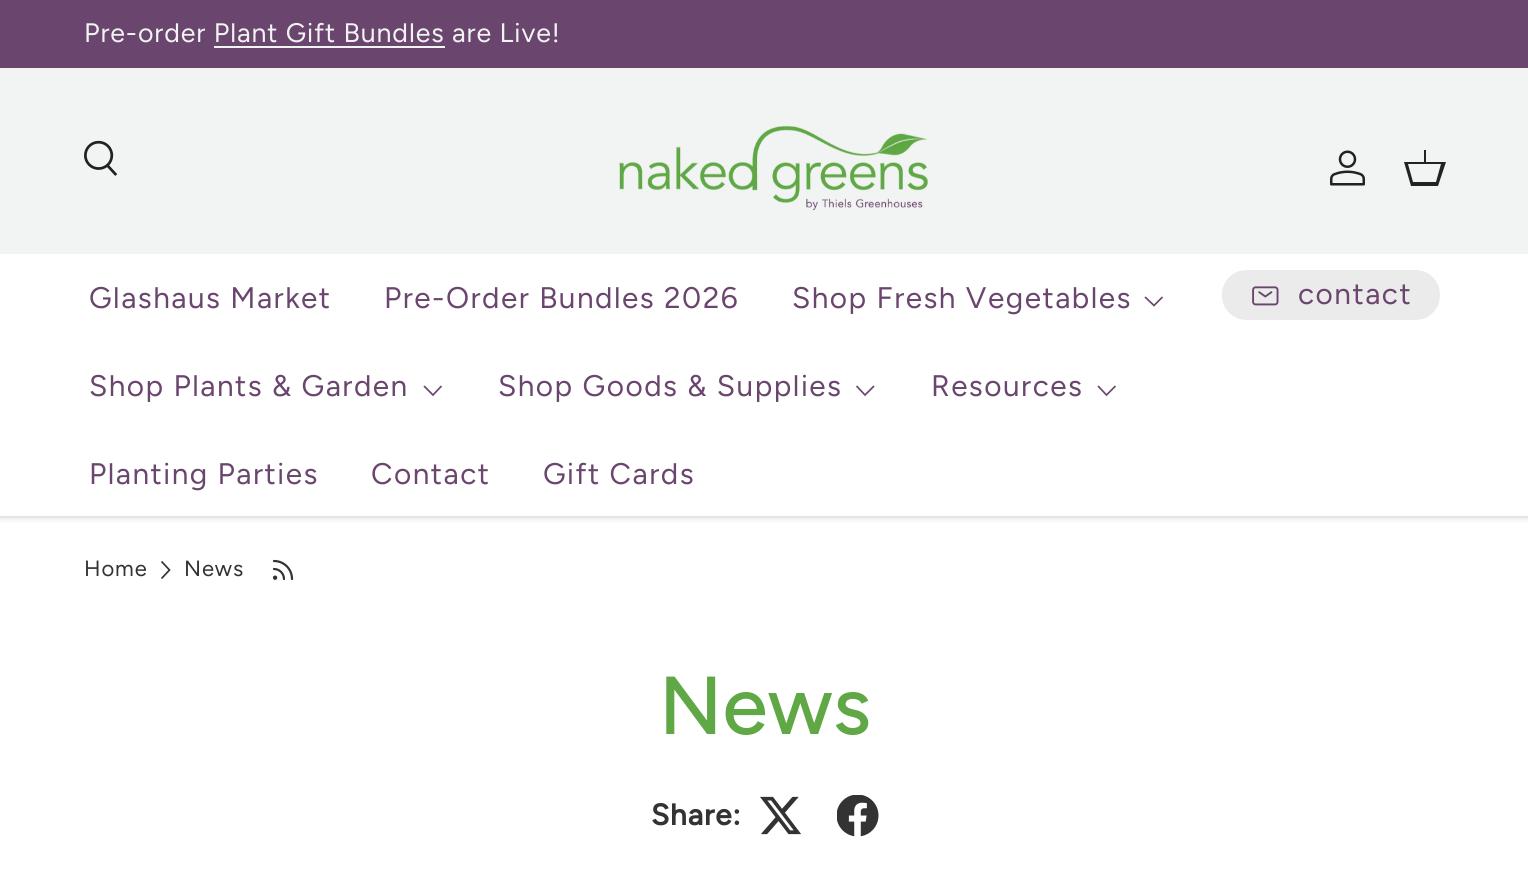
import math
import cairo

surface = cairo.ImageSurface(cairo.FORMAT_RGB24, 1528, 875)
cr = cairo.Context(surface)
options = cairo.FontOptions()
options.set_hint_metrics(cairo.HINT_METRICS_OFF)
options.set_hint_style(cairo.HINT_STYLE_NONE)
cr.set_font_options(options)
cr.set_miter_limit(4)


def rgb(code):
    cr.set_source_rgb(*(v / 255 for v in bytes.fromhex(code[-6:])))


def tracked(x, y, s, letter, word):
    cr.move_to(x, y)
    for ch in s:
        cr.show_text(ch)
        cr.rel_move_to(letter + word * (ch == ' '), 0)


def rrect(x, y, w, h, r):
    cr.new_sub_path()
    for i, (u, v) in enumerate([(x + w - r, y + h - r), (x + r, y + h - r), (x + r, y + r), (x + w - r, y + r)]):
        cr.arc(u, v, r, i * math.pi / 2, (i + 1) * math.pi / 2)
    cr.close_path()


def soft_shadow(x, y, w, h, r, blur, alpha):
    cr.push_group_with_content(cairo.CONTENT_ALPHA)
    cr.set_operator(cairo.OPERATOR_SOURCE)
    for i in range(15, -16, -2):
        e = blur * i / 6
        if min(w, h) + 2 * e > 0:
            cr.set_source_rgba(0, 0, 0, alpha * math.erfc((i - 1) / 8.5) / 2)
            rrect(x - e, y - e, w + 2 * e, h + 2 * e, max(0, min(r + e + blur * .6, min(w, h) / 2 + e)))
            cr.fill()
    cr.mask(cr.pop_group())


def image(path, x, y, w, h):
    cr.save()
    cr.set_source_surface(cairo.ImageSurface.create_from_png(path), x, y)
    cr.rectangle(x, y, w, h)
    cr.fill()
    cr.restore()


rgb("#ffffff")
cr.paint()
rgb("#000000")
soft_shadow(-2, 67, 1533, 453, 0, 2.5, 0.08)
for x, y, w, h, color in [
    (0, 0, 1528, 68, "#6a466e"),
    (214, 46, 231, 2, "#f2f4f3"),
    (0, 68, 1528, 186, "#f2f4f3"),
]:
    rgb(color)
    cr.rectangle(x, y, w, h)
    cr.fill()
image("img/1.png", 84, 140, 34, 36)
image("img/2.png", 619, 125, 309, 86)
image("img/3.png", 1330, 150, 35, 36)
rgb("#222222")
cr.new_path()
cr.move_to(1424, 162)
cr.line_to(1424, 150)
cr.line_to(1426, 150)
cr.line_to(1426, 162)
cr.line_to(1446, 162)
cr.line_to(1438, 186)
cr.line_to(1411, 186)
cr.line_to(1404, 162)
cr.close_path()
cr.move_to(1408, 164)
cr.line_to(1413, 182)
cr.line_to(1436, 182)
cr.line_to(1441, 164)
cr.close_path()
cr.fill()
rgb("#ffffff")
cr.rectangle(0, 254, 1528, 262)
cr.fill()
cr.new_path()
cr.move_to(1162.5, 297)
cr.line_to(1154, 305.5)
cr.line_to(1145, 297)
rgb("#6a466e")
cr.set_line_width(1.7)
cr.stroke()
cr.new_path()
cr.move_to(441.5, 386)
cr.line_to(433, 395)
cr.line_to(424, 386)
cr.stroke()
cr.new_path()
cr.move_to(874, 386)
cr.line_to(865, 395)
cr.line_to(856.5, 386)
cr.stroke()
cr.new_path()
cr.move_to(1115.5, 386)
cr.line_to(1106.5, 395)
cr.line_to(1098, 386)
cr.stroke()
cr.save()
rrect(1222, 270, 218, 50, 25)
cr.clip()
gradient = cairo.LinearGradient(806, 218, 1425, 372)
gradient.add_color_stop_rgba(0.6, 0.875, 0.855, 0.875, 1)
gradient.add_color_stop_rgba(0.6, 0.922, 0.922, 0.922, 1)
gradient.add_color_stop_rgba(1, 0.922, 0.922, 0.922, 1)
cr.set_source(gradient)
cr.rectangle(1222, 271, 217, 48)
cr.fill()
cr.restore()
rrect(1223, 271, 216, 48, 24)
rgb("#ebebeb")
cr.set_line_width(2)
cr.stroke()
image("img/4.png", 1252, 286, 27, 20)
rgb("#e9e3e9")
cr.rectangle(0, 516, 1528, 2)
cr.fill()
cr.new_path()
cr.move_to(161.5, 561.5)
cr.line_to(169.5, 570)
cr.line_to(161.5, 578.5)
rgb("#333333")
cr.set_line_width(1.7)
cr.stroke()
cr.new_path()
cr.move_to(274, 569)
cr.curve_to(279.5, 569, 284, 573.5, 284, 579)
cr.move_to(274, 561)
cr.curve_to(284, 561, 292, 569, 292, 579)
cr.set_line_width(2.2)
cr.set_line_cap(cairo.LINE_CAP_ROUND)
cr.set_line_join(cairo.LINE_JOIN_ROUND)
cr.stroke()
cr.arc(275.1, 577.7, 1.1, 0, 2 * math.pi)
cr.set_line_cap(cairo.LINE_CAP_BUTT)
cr.set_line_join(cairo.LINE_JOIN_MITER)
cr.stroke()
image("img/5.png", 760, 796, 41, 39)
image("img/6.png", 837, 795, 42, 42)
cr.select_font_face("Figtree")
cr.set_font_size(26.75)
rgb("#f2f4f3")
tracked(84, 42, "Pre-order Plant Gift Bundles are Live!", 0.9, 0)
cr.set_font_size(29.75)
rgb("#6a466e")
for x, y, s in [
    (89, 308, "Glashaus Market"),
    (384, 308, "Pre-Order Bundles 2026"),
    (792, 308, "Shop Fresh Vegetables"),
    (89, 396, "Shop Plants & Garden"),
    (498, 396, "Shop Goods & Supplies"),
    (931, 396, "Resources"),
    (89, 484, "Planting Parties"),
    (371, 484, "Contact"),
    (543, 484, "Gift Cards"),
    (1298, 304, "contact"),
]:
    tracked(x, y, s, 1.5, 0)
cr.set_font_size(22)
rgb("#333333")
tracked(84, 576, "Home", 0.9, 0)
tracked(184, 576, "News", 0.9, 0)
cr.select_font_face("Figtree Medium")
cr.set_font_size(82)
rgb("#5fa845")
cr.move_to(659, 734)
cr.show_text("News")
cr.select_font_face("Figtree", cairo.FONT_SLANT_NORMAL, cairo.FONT_WEIGHT_BOLD)
cr.set_font_size(29.75)
rgb("#333333")
tracked(651, 825, "Share:", 0.9, 0)
surface.write_to_png("page.png")
